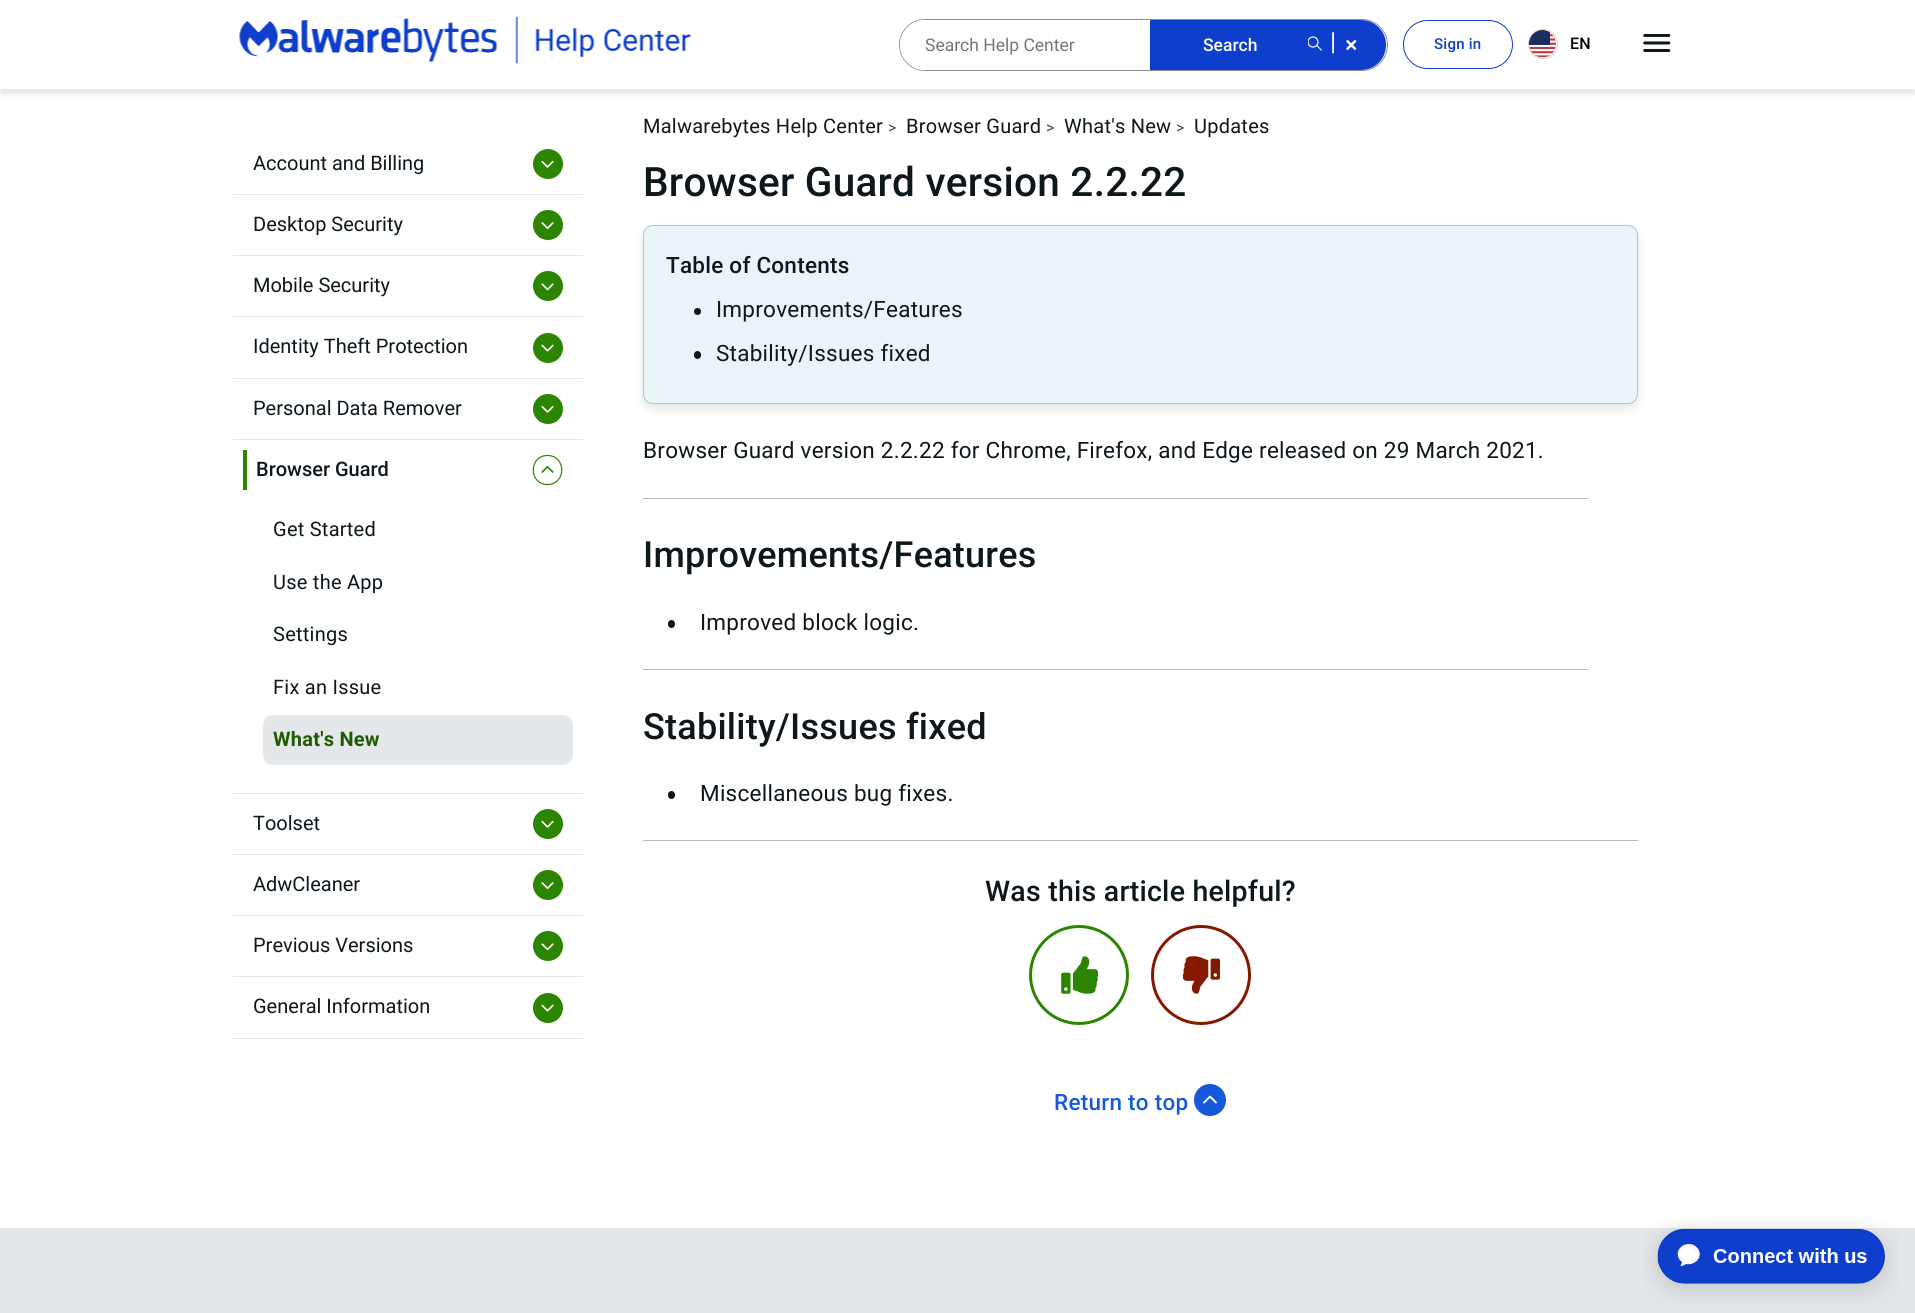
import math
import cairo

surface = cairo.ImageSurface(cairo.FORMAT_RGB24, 1915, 1313)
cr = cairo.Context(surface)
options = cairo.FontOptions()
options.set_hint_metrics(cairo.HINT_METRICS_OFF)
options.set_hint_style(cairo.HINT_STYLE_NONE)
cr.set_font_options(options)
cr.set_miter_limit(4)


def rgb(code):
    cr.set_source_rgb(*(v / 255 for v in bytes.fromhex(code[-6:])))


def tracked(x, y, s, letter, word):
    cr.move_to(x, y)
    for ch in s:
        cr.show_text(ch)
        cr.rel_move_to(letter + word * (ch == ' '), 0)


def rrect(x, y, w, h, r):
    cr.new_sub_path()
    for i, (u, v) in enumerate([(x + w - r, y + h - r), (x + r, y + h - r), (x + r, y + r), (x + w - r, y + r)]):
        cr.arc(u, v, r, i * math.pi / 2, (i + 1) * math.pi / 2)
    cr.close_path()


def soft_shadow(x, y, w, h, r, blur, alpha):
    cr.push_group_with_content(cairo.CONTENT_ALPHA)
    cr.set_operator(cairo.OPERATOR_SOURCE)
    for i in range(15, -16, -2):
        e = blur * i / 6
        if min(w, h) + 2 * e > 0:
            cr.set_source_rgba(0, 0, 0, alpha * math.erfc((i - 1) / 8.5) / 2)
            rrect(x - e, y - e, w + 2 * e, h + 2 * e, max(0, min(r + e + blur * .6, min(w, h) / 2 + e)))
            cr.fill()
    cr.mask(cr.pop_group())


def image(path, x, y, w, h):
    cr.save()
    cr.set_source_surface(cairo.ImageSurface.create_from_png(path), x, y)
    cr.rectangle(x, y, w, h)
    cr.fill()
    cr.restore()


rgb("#ffffff")
cr.paint()
rgb("#000000")
soft_shadow(0, 5, 1915, 89, 0, 2.5, 0.1)
rgb("#ffffff")
cr.rectangle(0, 2, 1915, 87)
cr.fill()
image("img/1.png", 239, 17, 452, 47)
rrect(899.5, 19.5, 488, 51, 25.5)
rgb("#87929d")
cr.set_line_width(1)
cr.stroke()
rgb("#ffffff")
rrect(900, 20, 250, 50, 25)
cr.fill()
rgb("#0d3ecc")
cr.new_path()
cr.move_to(1150, 20)
cr.line_to(1361, 20)
cr.curve_to(1375, 20, 1386, 31, 1386, 45)
cr.curve_to(1386, 59, 1375, 70, 1361, 70)
cr.line_to(1150, 70)
cr.close_path()
cr.fill()
image("img/2.png", 1308, 36, 14, 15)
image("img/3.png", 1346, 40, 11, 10)
rrect(1403.5, 20.5, 109, 48, 24)
cr.stroke()
cr.arc(1543, 44, 14.5, 0, 2 * math.pi)
rgb("#d3d3d3")
cr.stroke()
image("img/4.png", 1529, 30, 27, 28)
image("img/5.png", 1643, 34, 28, 18)
rgb("#e5e8ea")
cr.rectangle(233, 194, 350, 1)
cr.fill()
rgb("#2b8500")
cr.arc(548, 164, 15, 0, 2 * math.pi)
cr.fill()
image("img/6.png", 541, 160, 13, 8)
rgb("#e5e8ea")
cr.rectangle(233, 255, 350, 1)
cr.fill()
rgb("#2b8500")
cr.arc(548, 225, 15, 0, 2 * math.pi)
cr.fill()
image("img/7.png", 541, 222, 13, 7)
rgb("#e5e8ea")
cr.rectangle(233, 316, 350, 1)
cr.fill()
rgb("#2b8500")
cr.arc(548, 286, 15, 0, 2 * math.pi)
cr.fill()
image("img/8.png", 541, 283, 13, 8)
rgb("#e5e8ea")
cr.rectangle(233, 378, 350, 1)
cr.fill()
rgb("#2b8500")
cr.arc(548, 348, 15, 0, 2 * math.pi)
cr.fill()
image("img/9.png", 541, 344, 13, 8)
rgb("#e5e8ea")
cr.rectangle(233, 439, 350, 1)
cr.fill()
rgb("#2b8500")
cr.arc(548, 409, 15, 0, 2 * math.pi)
cr.fill()
image("img/6.png", 541, 405, 13, 8)
rgb("#e5e8ea")
cr.rectangle(233, 793, 350, 1)
cr.fill()
rgb("#2b8500")
cr.rectangle(243, 450, 4, 40)
cr.fill()
cr.new_path()
cr.move_to(547.5, 484.5)
cr.curve_to(528.5, 484.5, 528.5, 455.5, 547.5, 455.5)
cr.curve_to(566.5, 455.5, 566.5, 484.5, 547.5, 484.5)
cr.close_path()
cr.set_line_width(1.2)
cr.stroke()
image("img/10.png", 541, 466, 13, 7)
rgb("#e5e8ea")
rrect(263, 715, 310, 50, 10)
cr.fill()
cr.rectangle(233, 854, 350, 1)
cr.fill()
rgb("#2b8500")
cr.arc(548, 824, 15, 0, 2 * math.pi)
cr.fill()
image("img/6.png", 541, 820, 13, 8)
rgb("#e5e8ea")
cr.rectangle(233, 915, 350, 1)
cr.fill()
rgb("#2b8500")
cr.arc(548, 885, 15, 0, 2 * math.pi)
cr.fill()
image("img/7.png", 541, 882, 13, 7)
rgb("#e5e8ea")
cr.rectangle(233, 976, 350, 1)
cr.fill()
rgb("#2b8500")
cr.arc(548, 946, 15, 0, 2 * math.pi)
cr.fill()
image("img/8.png", 541, 943, 13, 8)
rgb("#e5e8ea")
cr.rectangle(233, 1038, 350, 1)
cr.fill()
rgb("#2b8500")
cr.arc(548, 1008, 15, 0, 2 * math.pi)
cr.fill()
image("img/9.png", 541, 1004, 13, 8)
rgb("#000000")
soft_shadow(643, 230, 995, 179, 10, 5, 0.1)
rgb("#eaf4f9")
rrect(643.5, 225.5, 994, 178, 9.5)
cr.fill_preserve()
rgb("#a3cada")
cr.set_line_width(1)
cr.stroke()
rgb("#0d171c")
cr.arc(697.5, 311.5, 3.5, 0, 2 * math.pi)
cr.fill()
rrect(694, 351, 7, 8, 3.5)
cr.fill()
rgb("#b6babc")
cr.rectangle(643, 498, 945, 1)
cr.fill()
rgb("#0d171c")
rrect(668, 620, 7, 8, 3.5)
cr.fill()
rgb("#b6babc")
cr.rectangle(643, 669, 945, 1)
cr.fill()
rgb("#0d171c")
rrect(668, 791, 7, 8, 3.5)
cr.fill()
rgb("#b6babc")
cr.rectangle(643, 840, 995, 1)
cr.fill()
cr.arc(1079, 975, 48.5, 0, 2 * math.pi)
rgb("#2b8500")
cr.set_line_width(3)
cr.stroke()
image("img/11.png", 1061, 956, 37, 38)
cr.arc(1201, 975, 48.5, 0, 2 * math.pi)
rgb("#851800")
cr.stroke()
image("img/12.png", 1183, 956, 37, 38)
rgb("#1558d9")
cr.arc(1210, 1100, 16, 0, 2 * math.pi)
cr.fill()
image("img/13.png", 1203, 1095, 14, 9)
rgb("#e5e8ea")
cr.rectangle(0, 1228, 1915, 85)
cr.fill()
image("img/14.png", 1644, 1218, 254, 86)
cr.select_font_face("Roboto")
cr.set_font_size(17.5)
rgb("#757575")
cr.move_to(925, 51)
cr.show_text("Search Help Center")
cr.select_font_face("Roboto Medium")
rgb("#ffffff")
cr.move_to(1203, 51)
cr.show_text("Search")
cr.select_font_face("Roboto")
cr.set_font_size(25)
tracked(1330, 50, "|", 0.25, 0)
cr.select_font_face("Roboto Medium")
cr.set_font_size(15)
rgb("#0d3ecc")
tracked(1434, 49, "Sign in", 0.25, 0)
cr.set_font_size(16)
rgb("#000000")
tracked(1570, 49, "EN", 0.25, 0)
cr.select_font_face("Roboto")
cr.set_font_size(20)
rgb("#0d171c")
for x, y, s in [
    (253, 170, "Account and Billing"),
    (253, 231, "Desktop Security"),
    (253, 292, "Mobile Security"),
    (253, 353, "Identity Theft Protection"),
    (253, 415, "Personal Data Remover"),
]:
    cr.move_to(x, y)
    cr.show_text(s)
cr.select_font_face("Roboto Medium")
cr.move_to(256, 476)
cr.show_text("Browser Guard")
cr.select_font_face("Roboto")
for x, y, s in [
    (273, 536, "Get Started"),
    (273, 589, "Use the App"),
    (273, 641, "Settings"),
    (273, 694, "Fix an Issue"),
]:
    tracked(x, y, s, 0.25, 0)
cr.select_font_face("Roboto", cairo.FONT_SLANT_NORMAL, cairo.FONT_WEIGHT_BOLD)
rgb("#1f5b02")
tracked(273, 746, "What's New", 0.25, 0)
cr.select_font_face("Roboto")
rgb("#0d171c")
for x, y, s in [
    (253, 830, "Toolset"),
    (253, 891, "AdwCleaner"),
    (253, 952, "Previous Versions"),
    (253, 1013, "General Information"),
]:
    cr.move_to(x, y)
    cr.show_text(s)
tracked(643, 133, "Malwarebytes Help Center", 0.25, 0)
cr.set_font_size(16)
rgb("#2d5062")
tracked(888, 133, ">", 0.25, 0)
cr.set_font_size(20)
rgb("#0d171c")
tracked(906, 133, "Browser Guard", 0.25, 0)
cr.set_font_size(16)
rgb("#2d5062")
tracked(1046, 133, ">", 0.25, 0)
cr.set_font_size(20)
rgb("#0d171c")
tracked(1064, 133, "What's New", 0.25, 0)
cr.set_font_size(16)
rgb("#2d5062")
tracked(1176, 133, ">", 0.25, 0)
cr.set_font_size(20)
rgb("#0d171c")
tracked(1194, 133, "Updates", 0.25, 0)
cr.select_font_face("Roboto Medium")
cr.set_font_size(40.5)
tracked(643, 196, "Browser Guard version 2.2.22", 0.25, 0)
cr.set_font_size(22.5)
tracked(666, 273, "Table of Contents", 0.25, 0)
cr.select_font_face("Roboto")
for x, y, s in [
    (716, 317, "Improvements/Features"),
    (716, 361, "Stability/Issues fixed"),
    (643, 458, "Browser Guard version 2.2.22 for Chrome, Firefox, and Edge released on 29 March 2021."),
]:
    tracked(x, y, s, 0.25, 0)
cr.select_font_face("Roboto Medium")
cr.set_font_size(36)
tracked(643, 567, "Improvements/Features", 0.25, 0)
cr.select_font_face("Roboto")
cr.set_font_size(22.5)
tracked(700, 630, "Improved block logic.", 0.25, 0)
cr.select_font_face("Roboto Medium")
cr.set_font_size(36)
tracked(643, 739, "Stability/Issues fixed", 0.25, 0)
cr.select_font_face("Roboto")
cr.set_font_size(22.5)
tracked(700, 801, "Miscellaneous bug fixes.", 0.25, 0)
cr.select_font_face("Roboto Medium")
cr.set_font_size(28.5)
tracked(985, 901, "Was this article helpful?", 0.25, 0)
cr.set_font_size(22.5)
rgb("#1558d9")
tracked(1054, 1110, "Return to top", 0.25, 0)
surface.write_to_png("page.png")
